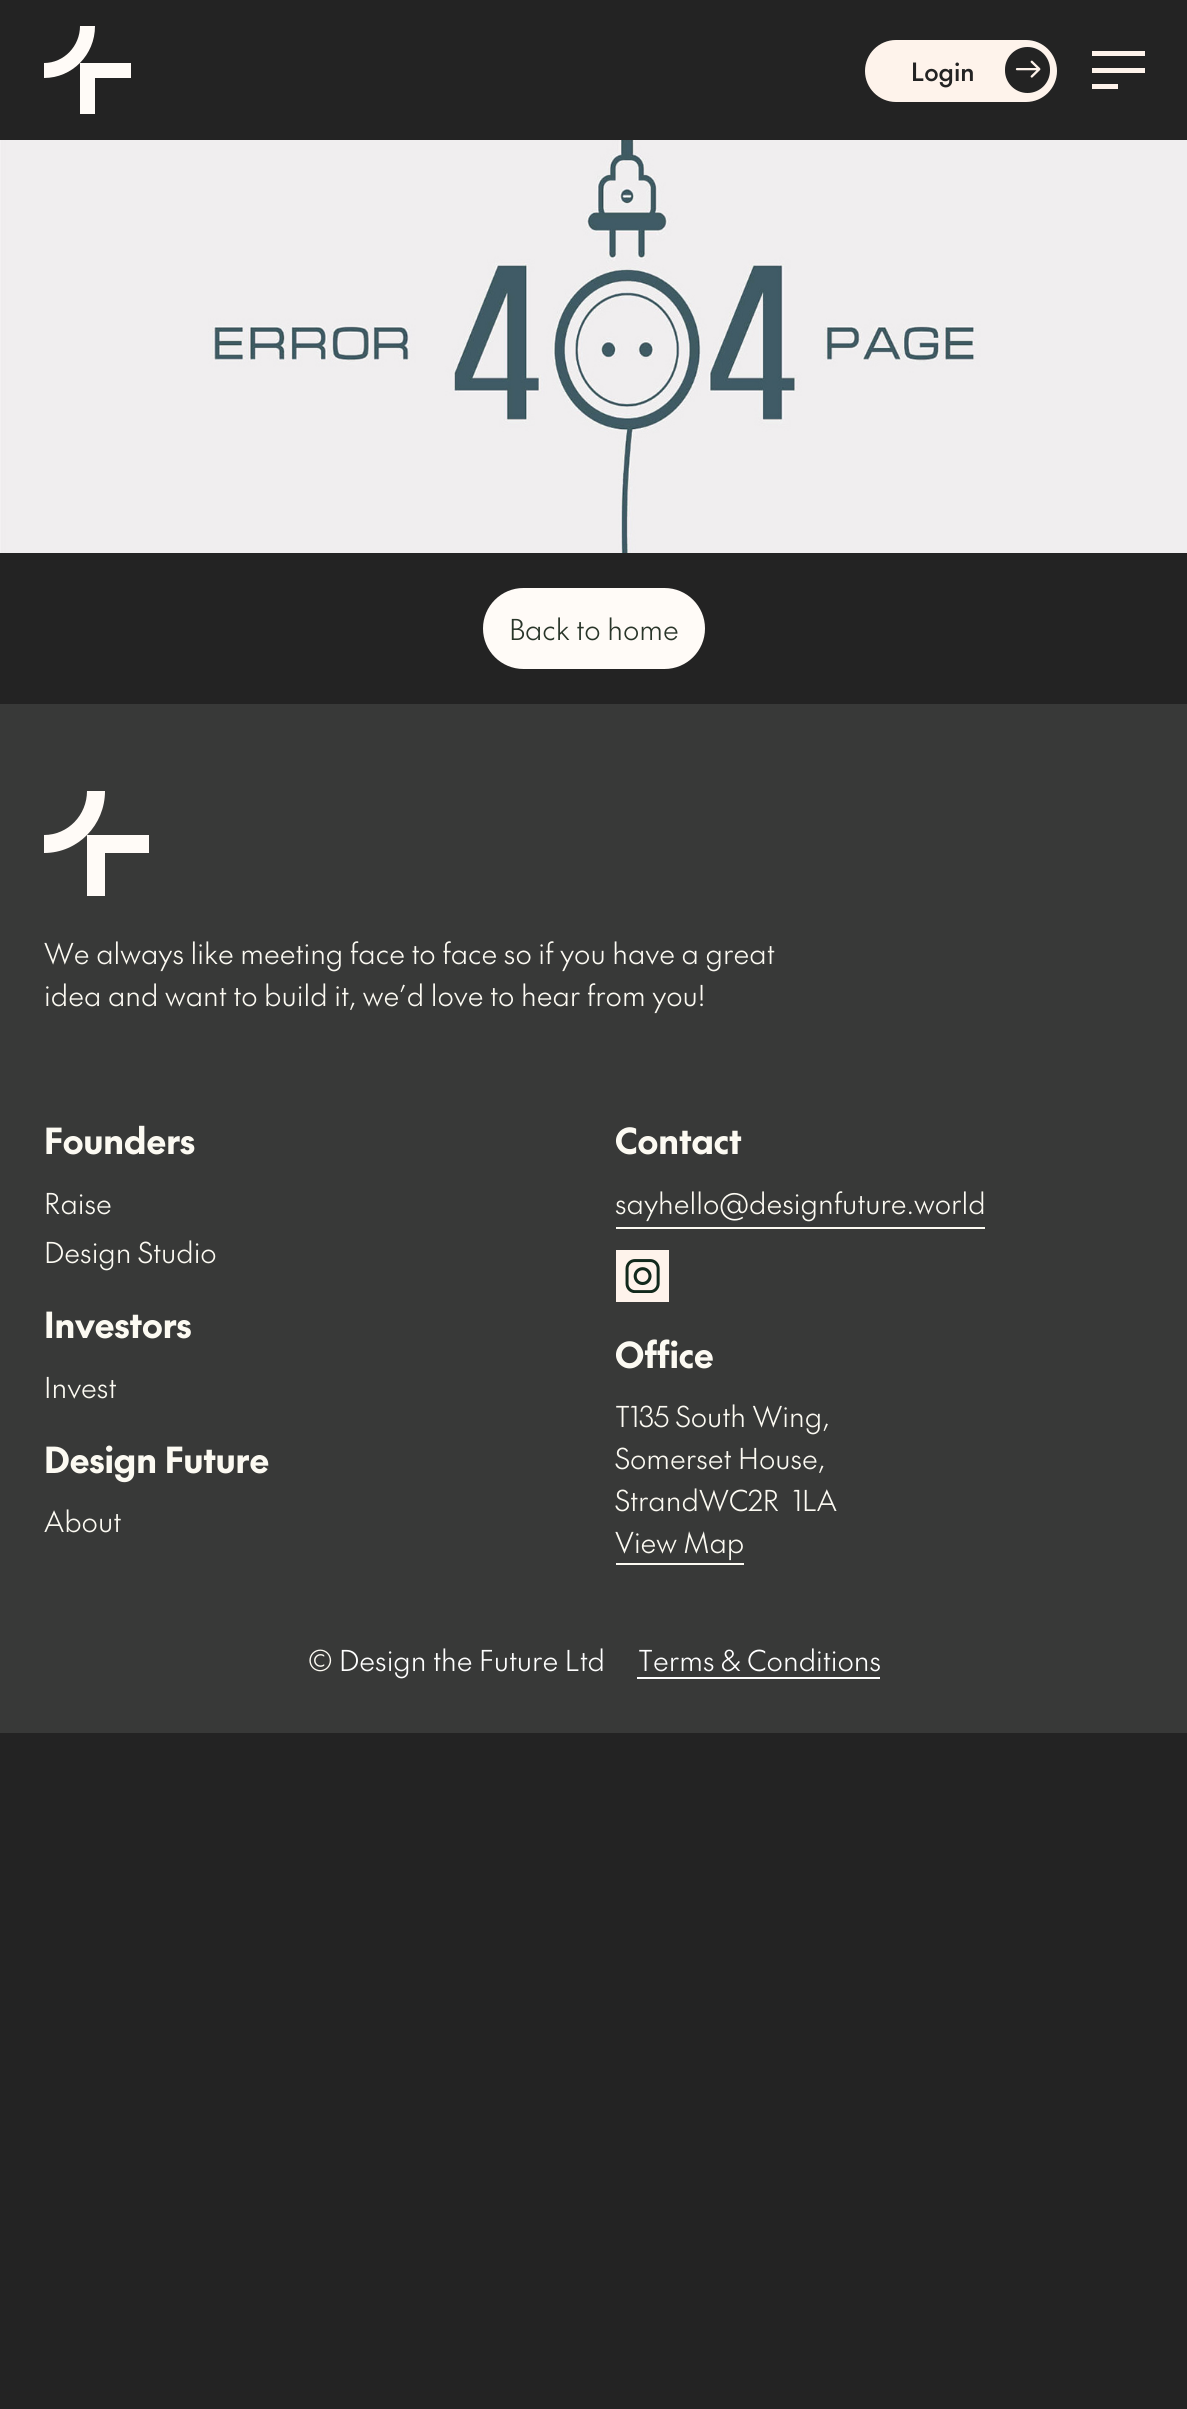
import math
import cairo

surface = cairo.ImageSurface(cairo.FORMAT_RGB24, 1187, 2409)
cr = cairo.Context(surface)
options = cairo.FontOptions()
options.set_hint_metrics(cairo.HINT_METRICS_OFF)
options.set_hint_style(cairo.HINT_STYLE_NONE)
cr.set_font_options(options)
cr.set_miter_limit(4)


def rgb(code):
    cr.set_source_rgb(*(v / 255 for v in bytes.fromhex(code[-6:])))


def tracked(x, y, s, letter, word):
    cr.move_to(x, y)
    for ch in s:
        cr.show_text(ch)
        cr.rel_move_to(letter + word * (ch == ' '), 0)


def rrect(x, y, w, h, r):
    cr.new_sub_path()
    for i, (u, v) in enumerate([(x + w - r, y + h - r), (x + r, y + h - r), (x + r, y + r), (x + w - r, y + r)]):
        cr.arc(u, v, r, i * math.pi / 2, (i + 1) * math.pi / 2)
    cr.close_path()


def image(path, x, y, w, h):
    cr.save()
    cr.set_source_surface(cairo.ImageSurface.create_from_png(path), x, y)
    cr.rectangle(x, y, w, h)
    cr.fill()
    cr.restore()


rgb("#232323")
cr.paint()
rgb("#fffbf7")
cr.new_path()
cr.move_to(44, 78)
cr.line_to(44, 63)
cr.curve_to(64, 63, 80, 46, 80, 26)
cr.line_to(95, 26)
cr.curve_to(95, 55, 72, 78, 44, 78)
cr.close_path()
cr.fill()
cr.new_path()
cr.move_to(95, 114)
cr.line_to(80, 114)
cr.line_to(80, 63)
cr.line_to(131, 63)
cr.line_to(131, 78)
cr.line_to(95, 78)
cr.close_path()
cr.fill()
rgb("#fef3eb")
rrect(865, 40, 192, 62, 31)
cr.fill()
rgb("#232323")
rrect(1005, 47, 45, 46, 22.5)
cr.fill()
image("img/1.png", 1015, 60, 26, 18)
for x, y, w, h, color in [
    (1092, 51, 53, 5, "#fef3eb"),
    (1092, 68, 53, 5, "#fef3eb"),
    (1092, 84, 26, 5, "#fef3eb"),
]:
    rgb(color)
    cr.rectangle(x, y, w, h)
    cr.fill()
image("img/2.png", 0, 140, 1187, 413)
rgb("#fffbf7")
rrect(483, 588, 222, 81, 40.5)
cr.fill()
rgb("#383938")
cr.rectangle(0, 704, 1187, 1029)
cr.fill()
rgb("#fffbf7")
cr.new_path()
cr.move_to(44, 853)
cr.line_to(44, 835)
cr.curve_to(68, 835, 87, 815, 87, 791)
cr.line_to(105, 791)
cr.curve_to(105, 825, 78, 853, 44, 853)
cr.close_path()
cr.fill()
cr.new_path()
cr.move_to(105, 896)
cr.line_to(87, 896)
cr.line_to(87, 835)
cr.line_to(149, 835)
cr.line_to(149, 853)
cr.line_to(105, 853)
cr.close_path()
cr.fill()
rgb("#fcfaf2")
cr.rectangle(616, 1227, 369, 2)
cr.fill()
rgb("#fef3eb")
cr.rectangle(616, 1250, 53, 52)
cr.fill()
image("img/3.png", 625, 1259, 35, 34)
rgb("#fcfaf2")
cr.rectangle(616, 1563, 128, 2)
cr.fill()
rgb("#ffffff")
cr.rectangle(637, 1677, 243, 2)
cr.fill()
cr.select_font_face("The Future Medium")
cr.set_font_size(24.5)
rgb("#232323")
cr.move_to(911, 81)
cr.show_text("Login")
cr.select_font_face("The Future Light")
cr.set_font_size(28)
rgb("#293529")
cr.move_to(509, 640)
cr.show_text("Back to home")
rgb("#fcfaf2")
cr.move_to(44, 964)
cr.show_text("We always like meeting face to face so if you have a great")
cr.move_to(44, 1006)
cr.show_text("idea and want to build it, we’d love to hear from you!")
cr.select_font_face("The Future", cairo.FONT_SLANT_NORMAL, cairo.FONT_WEIGHT_BOLD)
cr.set_font_size(35)
cr.move_to(44, 1154)
cr.show_text("Founders")
cr.select_font_face("The Future Light")
cr.set_font_size(28)
cr.move_to(44, 1214)
cr.show_text("Raise")
cr.move_to(44, 1263)
cr.show_text("Design Studio")
cr.select_font_face("The Future", cairo.FONT_SLANT_NORMAL, cairo.FONT_WEIGHT_BOLD)
cr.set_font_size(35)
cr.move_to(44, 1338)
cr.show_text("Investors")
cr.select_font_face("The Future Light")
cr.set_font_size(28)
cr.move_to(44, 1398)
cr.show_text("Invest")
cr.select_font_face("The Future", cairo.FONT_SLANT_NORMAL, cairo.FONT_WEIGHT_BOLD)
cr.set_font_size(35)
cr.move_to(44, 1473)
cr.show_text("Design Future")
cr.select_font_face("The Future Light")
cr.set_font_size(28)
cr.move_to(44, 1532)
cr.show_text("About")
cr.select_font_face("The Future", cairo.FONT_SLANT_NORMAL, cairo.FONT_WEIGHT_BOLD)
cr.set_font_size(35)
cr.move_to(615, 1154)
cr.show_text("Contact")
cr.select_font_face("The Future Light")
cr.set_font_size(28)
cr.move_to(615, 1214)
cr.show_text("sayhello@designfuture.world")
cr.select_font_face("The Future", cairo.FONT_SLANT_NORMAL, cairo.FONT_WEIGHT_BOLD)
cr.set_font_size(35)
cr.move_to(615, 1368)
cr.show_text("Office")
cr.select_font_face("The Future Light")
cr.set_font_size(28)
cr.move_to(615, 1427)
cr.show_text("T135 South Wing,")
cr.move_to(615, 1469)
cr.show_text("Somerset House,")
tracked(615, 1511, "StrandWC2R 1LA", 0, 7)
cr.move_to(615, 1553)
cr.show_text("View Map")
cr.move_to(308, 1671)
cr.show_text("©")
rgb("#ffffff")
cr.move_to(339, 1671)
cr.show_text("Design the Future Ltd")
cr.move_to(638, 1671)
cr.show_text("Terms & Conditions")
surface.write_to_png("page.png")
